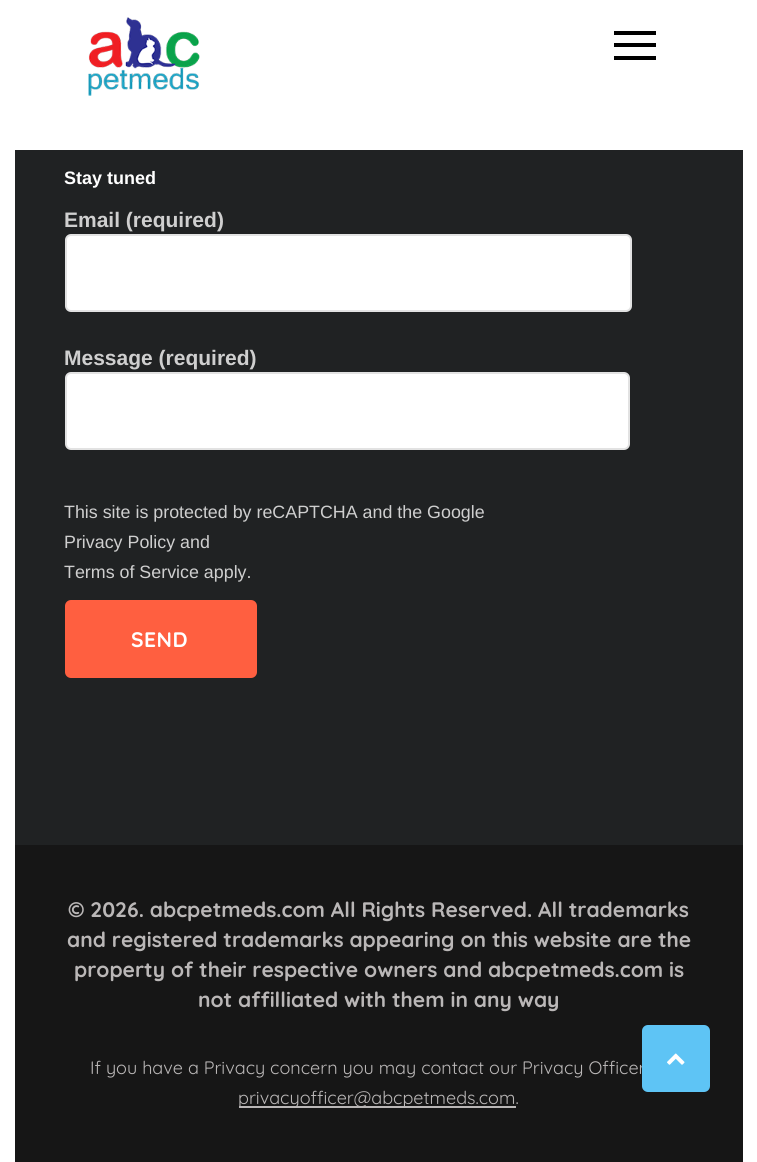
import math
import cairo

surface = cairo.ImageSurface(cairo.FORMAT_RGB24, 757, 1162)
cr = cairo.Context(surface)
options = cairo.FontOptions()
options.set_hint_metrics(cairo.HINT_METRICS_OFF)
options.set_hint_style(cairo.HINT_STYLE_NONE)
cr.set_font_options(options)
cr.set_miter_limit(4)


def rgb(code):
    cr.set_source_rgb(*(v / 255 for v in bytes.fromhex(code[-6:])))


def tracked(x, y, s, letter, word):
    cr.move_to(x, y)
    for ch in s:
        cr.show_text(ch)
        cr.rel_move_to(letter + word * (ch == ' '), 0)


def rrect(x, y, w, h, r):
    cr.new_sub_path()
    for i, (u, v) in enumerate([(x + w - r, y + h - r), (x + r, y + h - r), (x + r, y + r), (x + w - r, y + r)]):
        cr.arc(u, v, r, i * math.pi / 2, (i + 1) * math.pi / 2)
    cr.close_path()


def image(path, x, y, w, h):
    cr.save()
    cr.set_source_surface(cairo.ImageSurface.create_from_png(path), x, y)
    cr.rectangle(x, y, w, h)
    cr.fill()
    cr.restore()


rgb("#ffffff")
cr.paint()
image("img/1.png", 88, 17, 112, 79)
rgb("#000000")
cr.new_path()
cr.move_to(614, 47)
cr.line_to(614, 43)
cr.line_to(656, 43)
cr.line_to(656, 47)
cr.close_path()
cr.move_to(614, 35)
cr.line_to(614, 31)
cr.line_to(656, 31)
cr.line_to(656, 35)
cr.close_path()
cr.move_to(614, 60)
cr.line_to(614, 56)
cr.line_to(656, 56)
cr.line_to(656, 60)
cr.close_path()
cr.fill()
rgb("#202223")
cr.rectangle(15, 150, 728, 695)
cr.fill()
rgb("#ffffff")
rrect(66, 235, 565, 76, 5)
cr.fill_preserve()
rgb("#e2e2e2")
cr.stroke()
rgb("#ffffff")
rrect(66, 373, 563, 76, 5)
cr.fill_preserve()
rgb("#e2e2e2")
cr.stroke()
rgb("#ff5f40")
rrect(66, 601, 190, 76, 5)
cr.fill_preserve()
cr.stroke()
rgb("#161616")
cr.rectangle(15, 845, 728, 317)
cr.fill()
rgb("#bab7b7")
cr.rectangle(239, 1106, 277, 2)
cr.fill()
cr.select_font_face("Liberation Sans", cairo.FONT_SLANT_NORMAL, cairo.FONT_WEIGHT_BOLD)
cr.set_font_size(18)
rgb("#ffffff")
cr.move_to(64, 184)
cr.show_text("Stay tuned")
cr.set_font_size(21)
rgb("#cfcfcf")
cr.move_to(64, 227)
cr.show_text("Email (required)")
cr.move_to(64, 365)
cr.show_text("Message (required)")
cr.select_font_face("Liberation Sans")
cr.set_font_size(17.85)
for x, y, s in [
    (64, 518, "This site is protected by reCAPTCHA and the Google"),
    (64, 548, "Privacy Policy and"),
    (64, 578, "Terms of Service apply."),
]:
    cr.move_to(x, y)
    cr.show_text(s)
cr.select_font_face("Quicksand", cairo.FONT_SLANT_NORMAL, cairo.FONT_WEIGHT_BOLD)
cr.set_font_size(21)
rgb("#ffffff")
tracked(131, 647, "SEND", 0.5, 0)
rgb("#bab7b7")
for x, y, s in [
    (68, 917, "© 2026. abcpetmeds.com All Rights Reserved. All trademarks"),
    (67, 947, "and registered trademarks appearing on this website are the"),
    (74, 977, "property of their respective owners and abcpetmeds.com is"),
    (198, 1007, "not affilliated with them in any way"),
]:
    cr.move_to(x, y)
    cr.show_text(s)
cr.select_font_face("Quicksand")
cr.set_font_size(18)
cr.move_to(90, 1074)
cr.show_text("If you have a Privacy concern you may contact our Privacy Officer")
cr.move_to(238, 1104)
cr.show_text("privacyofficer@abcpetmeds.com.")
rgb("#5ec4f5")
rrect(642, 1025, 68, 67, 6)
cr.fill()
image("img/2.png", 667, 1053, 18, 12)
surface.write_to_png("page.png")
